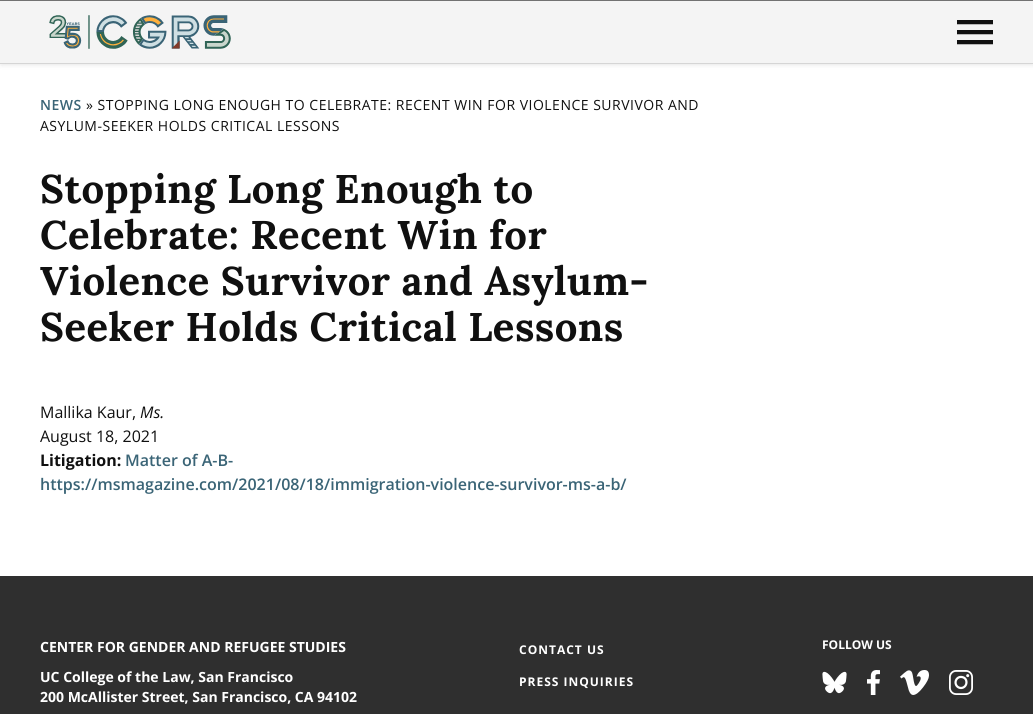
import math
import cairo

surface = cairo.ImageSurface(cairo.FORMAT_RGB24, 1033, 714)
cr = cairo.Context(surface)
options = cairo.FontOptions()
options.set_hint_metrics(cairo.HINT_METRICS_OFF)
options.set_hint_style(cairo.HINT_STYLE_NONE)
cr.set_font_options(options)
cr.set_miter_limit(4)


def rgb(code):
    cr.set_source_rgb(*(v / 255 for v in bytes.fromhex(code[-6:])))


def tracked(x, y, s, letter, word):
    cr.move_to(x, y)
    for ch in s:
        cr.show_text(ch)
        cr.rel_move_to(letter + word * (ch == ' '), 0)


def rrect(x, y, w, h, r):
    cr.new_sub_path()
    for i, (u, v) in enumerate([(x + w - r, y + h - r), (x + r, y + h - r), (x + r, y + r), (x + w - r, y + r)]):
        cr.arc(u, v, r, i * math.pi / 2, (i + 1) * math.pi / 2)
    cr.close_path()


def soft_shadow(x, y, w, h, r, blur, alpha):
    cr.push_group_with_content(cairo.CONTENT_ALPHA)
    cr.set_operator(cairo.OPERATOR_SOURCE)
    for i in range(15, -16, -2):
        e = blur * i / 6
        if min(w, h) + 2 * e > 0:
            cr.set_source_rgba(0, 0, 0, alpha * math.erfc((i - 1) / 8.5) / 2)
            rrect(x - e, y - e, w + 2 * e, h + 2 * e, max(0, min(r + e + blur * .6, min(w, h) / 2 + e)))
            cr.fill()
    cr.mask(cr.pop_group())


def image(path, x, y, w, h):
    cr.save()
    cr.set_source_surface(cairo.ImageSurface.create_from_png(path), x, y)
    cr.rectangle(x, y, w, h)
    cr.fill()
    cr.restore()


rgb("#ffffff")
cr.paint()
rgb("#757575")
cr.rectangle(0, 0, 1033, 1)
cr.fill()
rgb("#000000")
soft_shadow(1, 2, 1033, 63, 0, 2.5, 0.1)
rgb("#f4f4f4")
cr.rectangle(0, 1, 1033, 62)
cr.fill()
rgb("#d5d5d5")
cr.rectangle(0, 63, 1033, 1)
cr.fill()
image("img/1.png", 49, 15, 182, 34)
for x, y, w, h, color in [
    (957, 34, 36, 1, "#b7b7b7"),
    (957, 30, 36, 4, "#101010"),
    (957, 24, 36, 1, "#b7b7b7"),
    (957, 20, 36, 4, "#101010"),
    (957, 44, 36, 1, "#b7b7b7"),
    (957, 40, 36, 4, "#101010"),
    (0, 576, 1033, 138, "#2f2f2f"),
]:
    rgb(color)
    cr.rectangle(x, y, w, h)
    cr.fill()
image("img/2.png", 822, 671, 25, 23)
image("img/3.png", 867, 670, 13, 25)
image("img/4.png", 900, 670, 29, 25)
image("img/5.png", 949, 670, 24, 25)
cr.select_font_face("Open Sans SemiBold")
cr.set_font_size(14)
rgb("#3a6476")
tracked(40, 110, "NEWS", 0.5, 0)
cr.select_font_face("Open Sans")
rgb("#101010")
tracked(86, 110, "» STOPPING LONG ENOUGH TO CELEBRATE: RECENT WIN FOR VIOLENCE SURVIVOR AND", 0.5, 0)
tracked(40, 131, "ASYLUM-SEEKER HOLDS CRITICAL LESSONS", 0.5, 0)
cr.select_font_face("Lora", cairo.FONT_SLANT_NORMAL, cairo.FONT_WEIGHT_BOLD)
cr.set_font_size(40)
for x, y, s in [
    (40, 203, "Stopping Long Enough to"),
    (40, 249, "Celebrate: Recent Win for"),
    (40, 295, "Violence Survivor and Asylum-"),
    (40, 341, "Seeker Holds Critical Lessons"),
]:
    tracked(x, y, s, 0.5, 0)
cr.select_font_face("Open Sans")
cr.set_font_size(16)
cr.move_to(40, 418)
cr.show_text("Mallika Kaur,")
cr.select_font_face("Open Sans", cairo.FONT_SLANT_ITALIC)
cr.move_to(140, 418)
cr.show_text("Ms.")
cr.select_font_face("Open Sans")
cr.move_to(40, 442)
cr.show_text("August 18, 2021")
cr.select_font_face("Open Sans", cairo.FONT_SLANT_NORMAL, cairo.FONT_WEIGHT_BOLD)
cr.move_to(40, 466)
cr.show_text("Litigation:")
cr.select_font_face("Open Sans SemiBold")
rgb("#3a6476")
cr.move_to(125, 466)
cr.show_text("Matter of A-B-")
cr.move_to(40, 490)
cr.show_text("https://msmagazine.com/2021/08/18/immigration-violence-survivor-ms-a-b/")
cr.select_font_face("Open Sans", cairo.FONT_SLANT_NORMAL, cairo.FONT_WEIGHT_BOLD)
cr.set_font_size(14)
rgb("#ffffff")
for x, y, s in [
    (40, 652, "CENTER FOR GENDER AND REFUGEE STUDIES"),
    (40, 682, "UC College of the Law, San Francisco"),
    (40, 702, "200 McAllister Street, San Francisco, CA 94102"),
]:
    cr.move_to(x, y)
    cr.show_text(s)
cr.set_font_size(12)
tracked(519, 654, "CONTACT US", 1, 0)
tracked(519, 686, "PRESS INQUIRIES", 1, 0)
cr.move_to(822, 649)
cr.show_text("FOLLOW US")
surface.write_to_png("page.png")
